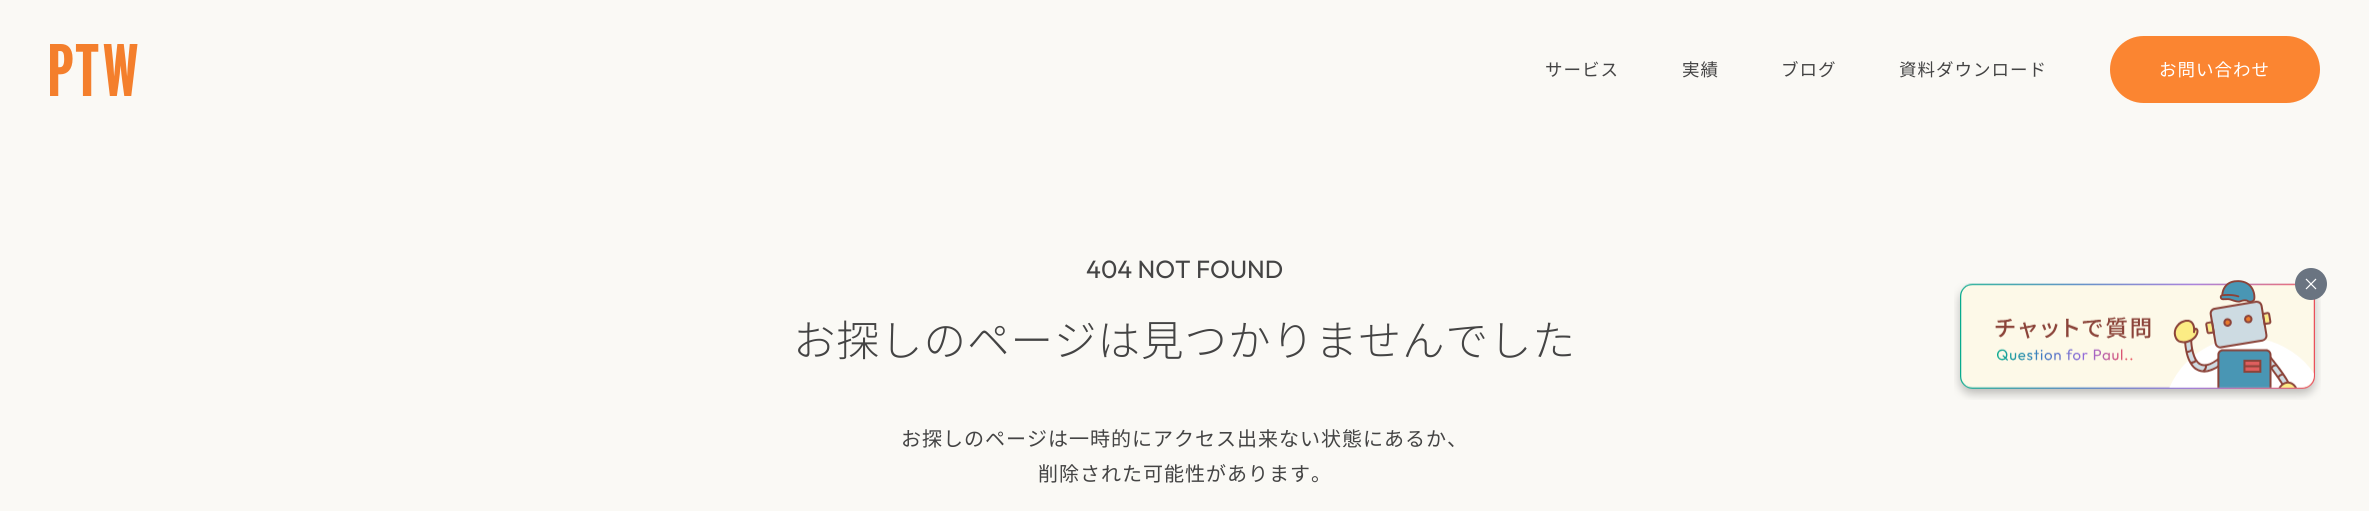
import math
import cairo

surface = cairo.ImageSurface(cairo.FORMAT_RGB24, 2369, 511)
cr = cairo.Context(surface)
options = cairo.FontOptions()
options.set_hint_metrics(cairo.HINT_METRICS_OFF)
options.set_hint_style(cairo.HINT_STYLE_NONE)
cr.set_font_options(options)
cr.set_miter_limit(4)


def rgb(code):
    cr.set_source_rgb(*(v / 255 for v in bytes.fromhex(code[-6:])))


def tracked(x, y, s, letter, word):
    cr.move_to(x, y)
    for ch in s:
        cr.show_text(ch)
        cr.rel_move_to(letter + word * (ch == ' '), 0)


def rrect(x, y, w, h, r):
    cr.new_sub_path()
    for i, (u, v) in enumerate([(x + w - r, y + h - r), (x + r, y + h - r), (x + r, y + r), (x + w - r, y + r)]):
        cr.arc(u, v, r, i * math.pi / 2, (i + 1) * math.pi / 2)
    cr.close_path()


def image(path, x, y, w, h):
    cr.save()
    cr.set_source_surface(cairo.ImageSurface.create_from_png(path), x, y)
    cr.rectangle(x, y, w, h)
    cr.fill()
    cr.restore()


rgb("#faf9f5")
cr.paint()
image("img/1.png", 50, 44, 88, 52)
rgb("#fb8531")
rrect(2110, 36, 210, 67, 33.5)
cr.fill()
image("img/3.png", 1954, 283, 367, 117)
image("img/2.png", 2219, 280, 37, 23)
rgb("#6a7481")
cr.arc(2311, 284, 16, 0, 2 * math.pi)
cr.fill()
cr.new_path()
cr.move_to(2316, 289)
cr.line_to(2306, 279)
cr.move_to(2306, 289)
cr.line_to(2316, 279)
rgb("#ffffff")
cr.set_line_width(1.2)
cr.stroke()
cr.select_font_face("Noto Sans JP")
cr.set_font_size(17.5)
rgb("#444444")
for x, y, s in [
    (1545, 76, "サービス"),
    (1682, 76, "実績"),
    (1781, 76, "ブログ"),
    (1899, 76, "資料ダウンロード"),
]:
    tracked(x, y, s, 1, 0)
rgb("#ffffff")
tracked(2159, 76, "お問い合わせ", 1, 0)
cr.select_font_face("Outfit")
cr.set_font_size(25)
rgb("#444444")
cr.move_to(1086, 278)
cr.show_text("404 NOT FOUND")
cr.select_font_face("Noto Sans JP Light")
cr.set_font_size(42.5)
tracked(793, 356, "お探しのページは見つかりませんでした", 1, 0)
cr.select_font_face("Noto Sans JP")
cr.set_font_size(20)
tracked(901, 446, "お探しのページは一時的にアクセス出来ない状態にあるか、", 1, 0)
tracked(1038, 481, "削除された可能性があります。", 1, 0)
surface.write_to_png("page.png")
